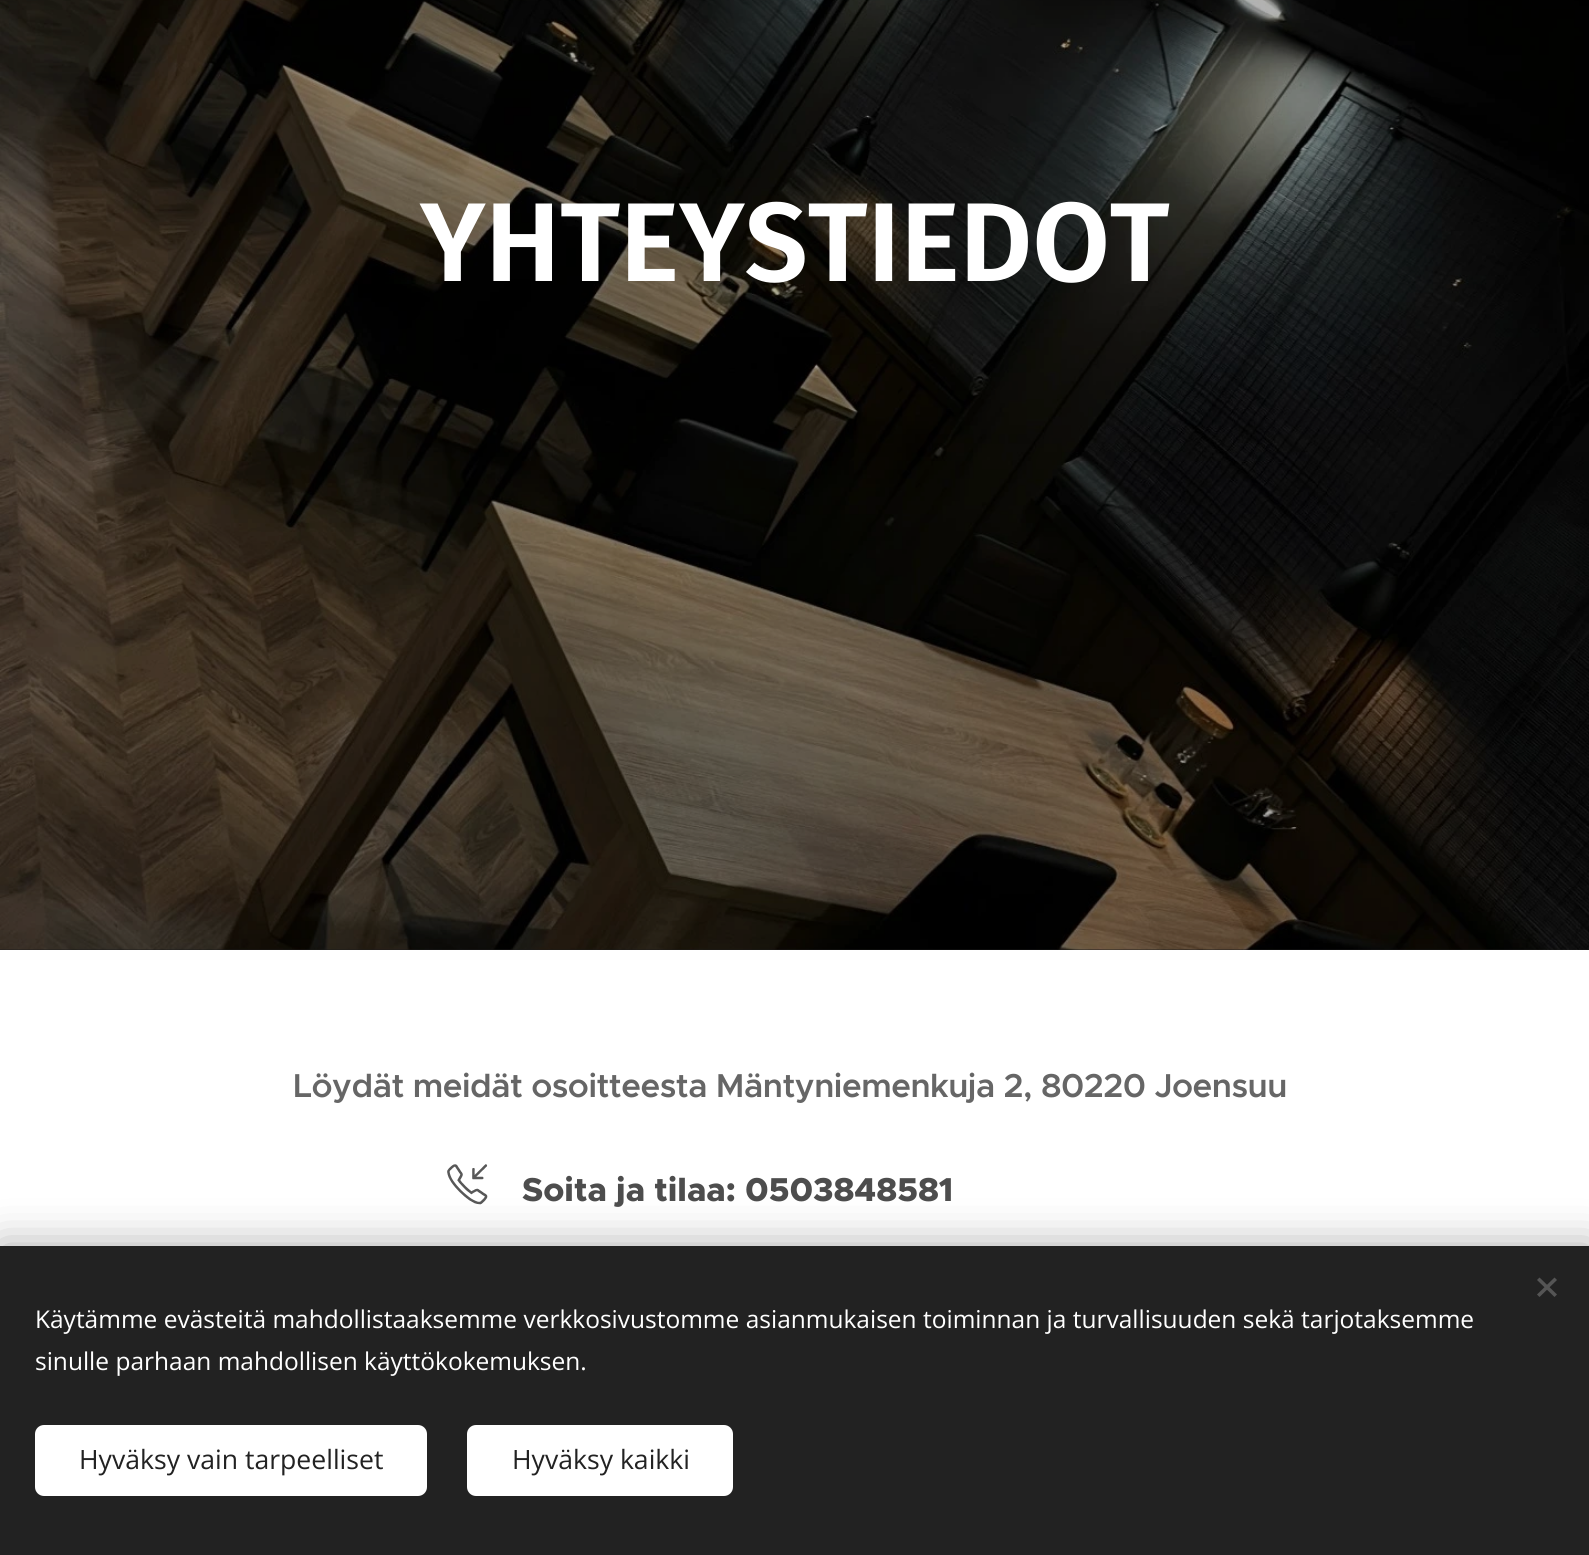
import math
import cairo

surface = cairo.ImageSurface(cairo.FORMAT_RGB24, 1589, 1555)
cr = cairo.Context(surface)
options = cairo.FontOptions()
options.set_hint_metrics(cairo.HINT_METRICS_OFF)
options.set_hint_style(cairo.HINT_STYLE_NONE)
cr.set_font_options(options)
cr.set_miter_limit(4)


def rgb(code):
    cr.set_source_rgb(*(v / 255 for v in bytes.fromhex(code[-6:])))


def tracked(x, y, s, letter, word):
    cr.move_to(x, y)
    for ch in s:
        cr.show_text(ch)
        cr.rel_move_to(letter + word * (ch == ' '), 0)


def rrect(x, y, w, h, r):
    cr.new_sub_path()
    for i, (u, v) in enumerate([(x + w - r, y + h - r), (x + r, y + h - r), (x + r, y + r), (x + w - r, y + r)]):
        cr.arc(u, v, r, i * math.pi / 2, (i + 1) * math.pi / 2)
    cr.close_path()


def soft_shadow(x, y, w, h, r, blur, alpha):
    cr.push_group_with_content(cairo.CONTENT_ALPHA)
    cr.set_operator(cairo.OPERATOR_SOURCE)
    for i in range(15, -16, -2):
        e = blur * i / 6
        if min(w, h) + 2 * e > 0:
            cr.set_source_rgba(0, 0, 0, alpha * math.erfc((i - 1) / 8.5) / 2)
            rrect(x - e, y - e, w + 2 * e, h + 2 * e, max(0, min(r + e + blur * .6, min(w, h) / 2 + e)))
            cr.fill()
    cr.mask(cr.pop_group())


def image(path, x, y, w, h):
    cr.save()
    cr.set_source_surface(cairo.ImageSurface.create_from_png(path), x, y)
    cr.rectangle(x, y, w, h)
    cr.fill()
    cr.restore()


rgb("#ffffff")
cr.paint()
rgb("#1b1b1b")
cr.rectangle(0, 949, 1589, 1)
cr.fill()
image("img/1.png", 0, 0, 1589, 950)
image("img/2.png", 447, 1164, 41, 41)
rgb("#000000")
soft_shadow(0, 1246, 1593, 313, 0, 22, 0.33)
rgb("#222222")
cr.rectangle(0, 1246, 1589, 309)
cr.fill()
rgb("#555555")
cr.new_path()
cr.move_to(1537, 1294.5)
cr.line_to(1554.5, 1277.5)
cr.line_to(1557, 1280)
cr.line_to(1539.5, 1297)
cr.close_path()
cr.fill()
cr.new_path()
cr.move_to(1539.5, 1277.5)
cr.line_to(1557, 1294.5)
cr.line_to(1554.5, 1297)
cr.line_to(1537, 1280)
cr.close_path()
cr.fill()
rgb("#ffffff")
rrect(35, 1425, 392, 71, 9)
cr.fill()
rrect(467, 1425, 266, 71, 9)
cr.fill()
cr.select_font_face("Fira Sans SemiBold")
cr.set_font_size(112)
cr.move_to(420, 281)
cr.show_text("YHTEYSTIEDOT")
cr.select_font_face("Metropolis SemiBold")
cr.set_font_size(33.25)
rgb("#666666")
tracked(293, 1097, "Löydät meidät osoitteesta Mäntyniemenkuja 2, 80220 Joensuu", -0.5, 0)
cr.select_font_face("Metropolis ExtraBold")
rgb("#4d4d4d")
cr.move_to(522, 1201)
cr.show_text("Soita ja tilaa: 0503848581")
cr.select_font_face("Open Sans")
cr.set_font_size(24.5)
rgb("#ffffff")
cr.move_to(35, 1328)
cr.show_text("Käytämme evästeitä mahdollistaaksemme verkkosivustomme asianmukaisen toiminnan ja turvallisuuden sekä tarjotaksemme")
cr.move_to(35, 1370)
cr.show_text("sinulle parhaan mahdollisen käyttökokemuksen.")
cr.set_font_size(26.6)
rgb("#222222")
cr.move_to(79, 1469)
cr.show_text("Hyväksy vain tarpeelliset")
cr.move_to(512, 1469)
cr.show_text("Hyväksy kaikki")
surface.write_to_png("page.png")
